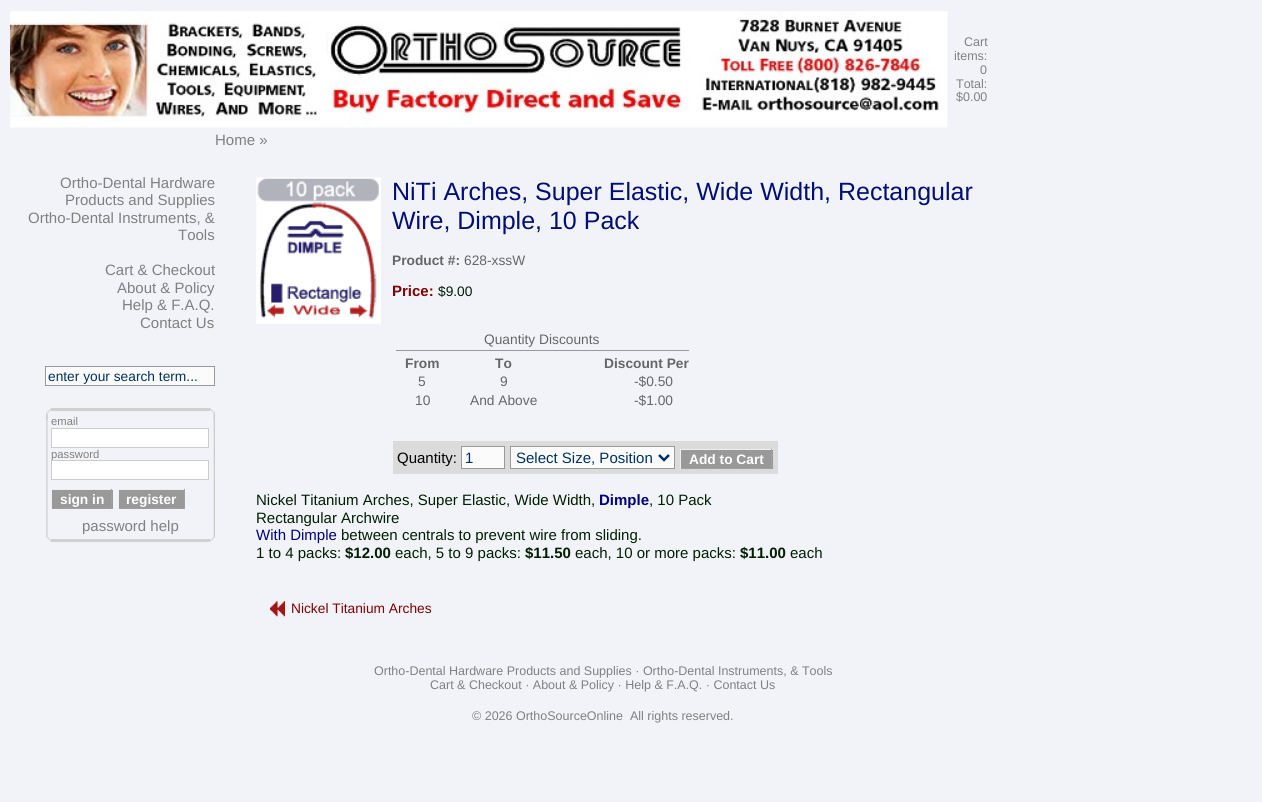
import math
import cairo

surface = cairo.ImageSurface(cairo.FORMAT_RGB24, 1262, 802)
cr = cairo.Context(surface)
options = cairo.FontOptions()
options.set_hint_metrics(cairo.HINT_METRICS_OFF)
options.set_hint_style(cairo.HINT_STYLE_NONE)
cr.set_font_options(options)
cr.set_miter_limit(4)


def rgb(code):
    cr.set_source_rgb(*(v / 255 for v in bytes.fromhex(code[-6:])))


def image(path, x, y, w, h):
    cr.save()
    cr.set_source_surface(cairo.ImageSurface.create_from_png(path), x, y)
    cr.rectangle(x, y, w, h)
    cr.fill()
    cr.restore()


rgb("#f2f3f9")
cr.paint()
image("img/1.png", 10, 11, 938, 117)
rgb("#fbfbfb")
cr.rectangle(45.5, 366.5, 169, 19)
cr.fill_preserve()
rgb("#999999")
cr.set_line_width(1)
cr.stroke()
image("img/2.png", 46, 408, 5, 7)
rgb("#d0d0d0")
cr.rectangle(51, 408, 159, 3)
cr.fill()
image("img/3.png", 210, 408, 5, 7)
image("img/4.png", 46, 415, 2, 120)
image("img/5.png", 46, 415, 2, 5)
rgb("#ffffff")
cr.rectangle(51.5, 428.5, 157, 19)
cr.fill_preserve()
rgb("#cccccc")
cr.stroke()
for x, y, w, h, color in [
    (52, 490, 61, 18, "#999999"),
    (51, 489, 62, 1, "#eeeeee"),
    (111, 489, 1, 20, "#9f9f9f"),
    (51, 508, 62, 1, "#9f9f9f"),
    (51, 489, 1, 20, "#eeeeee"),
    (119, 490, 65, 18, "#999999"),
    (118, 489, 67, 1, "#eeeeee"),
    (184, 489, 1, 20, "#9f9f9f"),
    (118, 508, 67, 1, "#9f9f9f"),
    (118, 489, 1, 20, "#eeeeee"),
]:
    rgb(color)
    cr.rectangle(x, y, w, h)
    cr.fill()
image("img/6.png", 213, 415, 2, 120)
rgb("#e0e0e4")
cr.rectangle(213, 415, 1, 6)
cr.fill()
image("img/7.png", 46, 535, 5, 7)
rgb("#d0d0d0")
cr.rectangle(51, 539, 159, 3)
cr.fill()
image("img/8.png", 210, 535, 5, 7)
image("img/9.png", 256, 177, 125, 147)
rgb("#999999")
cr.rectangle(396, 350, 293, 1)
cr.fill()
rgb("#dbdbdb")
cr.rectangle(393, 441, 385, 33)
cr.fill()
rgb("#fbfbfb")
cr.rectangle(461.5, 446.5, 43, 22)
cr.fill_preserve()
rgb("#999999")
cr.stroke()
rgb("#fbfbfb")
cr.rectangle(510.5, 446.5, 164, 22)
cr.fill_preserve()
rgb("#999999")
cr.stroke()
cr.new_path()
cr.move_to(659, 455)
cr.line_to(664, 460)
cr.line_to(669, 455)
rgb("#003163")
cr.set_line_width(2.5)
cr.stroke()
for x, y, w, h, color in [
    (681, 450, 92, 18, "#999999"),
    (680, 449, 93, 1, "#eeeeee"),
    (771, 449, 1, 20, "#9f9f9f"),
    (680, 468, 93, 1, "#9f9f9f"),
    (680, 449, 1, 20, "#eeeeee"),
]:
    rgb(color)
    cr.rectangle(x, y, w, h)
    cr.fill()
image("img/10.png", 270, 601, 15, 16)
cr.select_font_face("Liberation Sans")
cr.set_font_size(12.5)
rgb("#808080")
for x, y, s in [
    (964, 46, "Cart"),
    (954, 60, "items:"),
    (980, 74, "0"),
    (956, 88, "Total:"),
    (956, 101, "$0.00"),
]:
    cr.move_to(x, y)
    cr.show_text(s)
cr.set_font_size(15)
for x, y, s in [
    (215, 145, "Home »"),
    (60, 188, "Ortho-Dental Hardware"),
    (65, 205, "Products and Supplies"),
    (28, 223, "Ortho-Dental Instruments, &"),
    (178, 240, "Tools"),
    (105, 275, "Cart & Checkout"),
    (117, 293, "About & Policy"),
    (122, 310, "Help & F.A.Q."),
    (140, 328, "Contact Us"),
]:
    cr.move_to(x, y)
    cr.show_text(s)
cr.set_font_size(13.75)
rgb("#003163")
cr.move_to(48, 381)
cr.show_text("enter your search term...")
cr.set_font_size(11.25)
rgb("#808080")
cr.move_to(51, 425)
cr.show_text("email")
cr.move_to(51, 458)
cr.show_text("password")
rgb("#ffffff")
cr.rectangle(51.5, 460.5, 157, 19)
cr.fill_preserve()
rgb("#cccccc")
cr.set_line_width(1)
cr.stroke()
cr.select_font_face("Liberation Sans", cairo.FONT_SLANT_NORMAL, cairo.FONT_WEIGHT_BOLD)
cr.set_font_size(13.75)
rgb("#ffffff")
cr.move_to(60, 504)
cr.show_text("sign in")
cr.move_to(126, 504)
cr.show_text("register")
cr.select_font_face("Liberation Sans")
cr.set_font_size(15)
rgb("#808080")
cr.move_to(82, 531)
cr.show_text("password help")
cr.set_font_size(25)
rgb("#000e79")
cr.move_to(392, 200)
cr.show_text("NiTi Arches, Super Elastic, Wide Width, Rectangular")
cr.move_to(392, 229)
cr.show_text("Wire, Dimple, 10 Pack")
cr.select_font_face("Liberation Sans", cairo.FONT_SLANT_NORMAL, cairo.FONT_WEIGHT_BOLD)
cr.set_font_size(13.75)
rgb("#666666")
cr.move_to(392, 265)
cr.show_text("Product #:")
cr.select_font_face("Liberation Sans")
cr.move_to(464, 265)
cr.show_text("628-xssW")
cr.select_font_face("Liberation Sans", cairo.FONT_SLANT_NORMAL, cairo.FONT_WEIGHT_BOLD)
cr.set_font_size(15)
rgb("#800000")
cr.move_to(392, 296)
cr.show_text("Price:")
cr.select_font_face("Liberation Sans")
cr.set_font_size(13.75)
rgb("#001e00")
cr.move_to(438, 296)
cr.show_text("$9.00")
rgb("#666666")
cr.move_to(484, 344)
cr.show_text("Quantity Discounts")
cr.select_font_face("Liberation Sans", cairo.FONT_SLANT_NORMAL, cairo.FONT_WEIGHT_BOLD)
for x, y, s in [
    (405, 368, "From"),
    (495, 368, "To"),
    (604, 368, "Discount Per"),
]:
    cr.move_to(x, y)
    cr.show_text(s)
cr.select_font_face("Liberation Sans")
for x, y, s in [
    (418, 386, "5"),
    (500, 386, "9"),
    (634, 386, "-$0.50"),
    (415, 405, "10"),
    (470, 405, "And Above"),
    (634, 405, "-$1.00"),
]:
    cr.move_to(x, y)
    cr.show_text(s)
cr.set_font_size(15)
rgb("#000000")
cr.move_to(397, 463)
cr.show_text("Quantity:")
rgb("#003163")
cr.move_to(465, 463)
cr.show_text("1")
cr.move_to(516, 463)
cr.show_text("Select Size, Position")
cr.select_font_face("Liberation Sans", cairo.FONT_SLANT_NORMAL, cairo.FONT_WEIGHT_BOLD)
cr.set_font_size(13.75)
rgb("#ffffff")
cr.move_to(689, 464)
cr.show_text("Add to Cart")
cr.select_font_face("Liberation Sans")
cr.set_font_size(15)
rgb("#001e00")
cr.move_to(256, 505)
cr.show_text("Nickel Titanium Arches, Super Elastic, Wide Width,")
cr.select_font_face("Liberation Sans", cairo.FONT_SLANT_NORMAL, cairo.FONT_WEIGHT_BOLD)
rgb("#000080")
cr.move_to(599, 505)
cr.show_text("Dimple")
cr.select_font_face("Liberation Sans")
rgb("#001e00")
cr.move_to(649, 505)
cr.show_text(", 10 Pack")
cr.move_to(256, 523)
cr.show_text("Rectangular Archwire")
rgb("#000080")
cr.move_to(256, 540)
cr.show_text("With Dimple")
rgb("#001e00")
cr.move_to(341, 540)
cr.show_text("between centrals to prevent wire from sliding.")
cr.move_to(256, 558)
cr.show_text("1 to 4 packs:")
cr.select_font_face("Liberation Sans", cairo.FONT_SLANT_NORMAL, cairo.FONT_WEIGHT_BOLD)
cr.move_to(345, 558)
cr.show_text("$12.00")
cr.select_font_face("Liberation Sans")
cr.move_to(395, 558)
cr.show_text("each, 5 to 9 packs:")
cr.select_font_face("Liberation Sans", cairo.FONT_SLANT_NORMAL, cairo.FONT_WEIGHT_BOLD)
cr.move_to(525, 558)
cr.show_text("$11.50")
cr.select_font_face("Liberation Sans")
cr.move_to(575, 558)
cr.show_text("each, 10 or more packs:")
cr.select_font_face("Liberation Sans", cairo.FONT_SLANT_NORMAL, cairo.FONT_WEIGHT_BOLD)
cr.move_to(740, 558)
cr.show_text("$11.00")
cr.select_font_face("Liberation Sans")
cr.move_to(790, 558)
cr.show_text("each")
cr.set_font_size(13.75)
rgb("#800000")
cr.move_to(291, 613)
cr.show_text("Nickel Titanium Arches")
cr.set_font_size(12.5)
rgb("#808080")
for x, y, s in [
    (374, 675, "Ortho-Dental Hardware Products and Supplies · Ortho-Dental Instruments, & Tools"),
    (430, 689, "Cart & Checkout · About & Policy · Help & F.A.Q. · Contact Us"),
    (472, 720, "© 2026 OrthoSourceOnline"),
    (630, 720, "All rights reserved."),
]:
    cr.move_to(x, y)
    cr.show_text(s)
surface.write_to_png("page.png")
